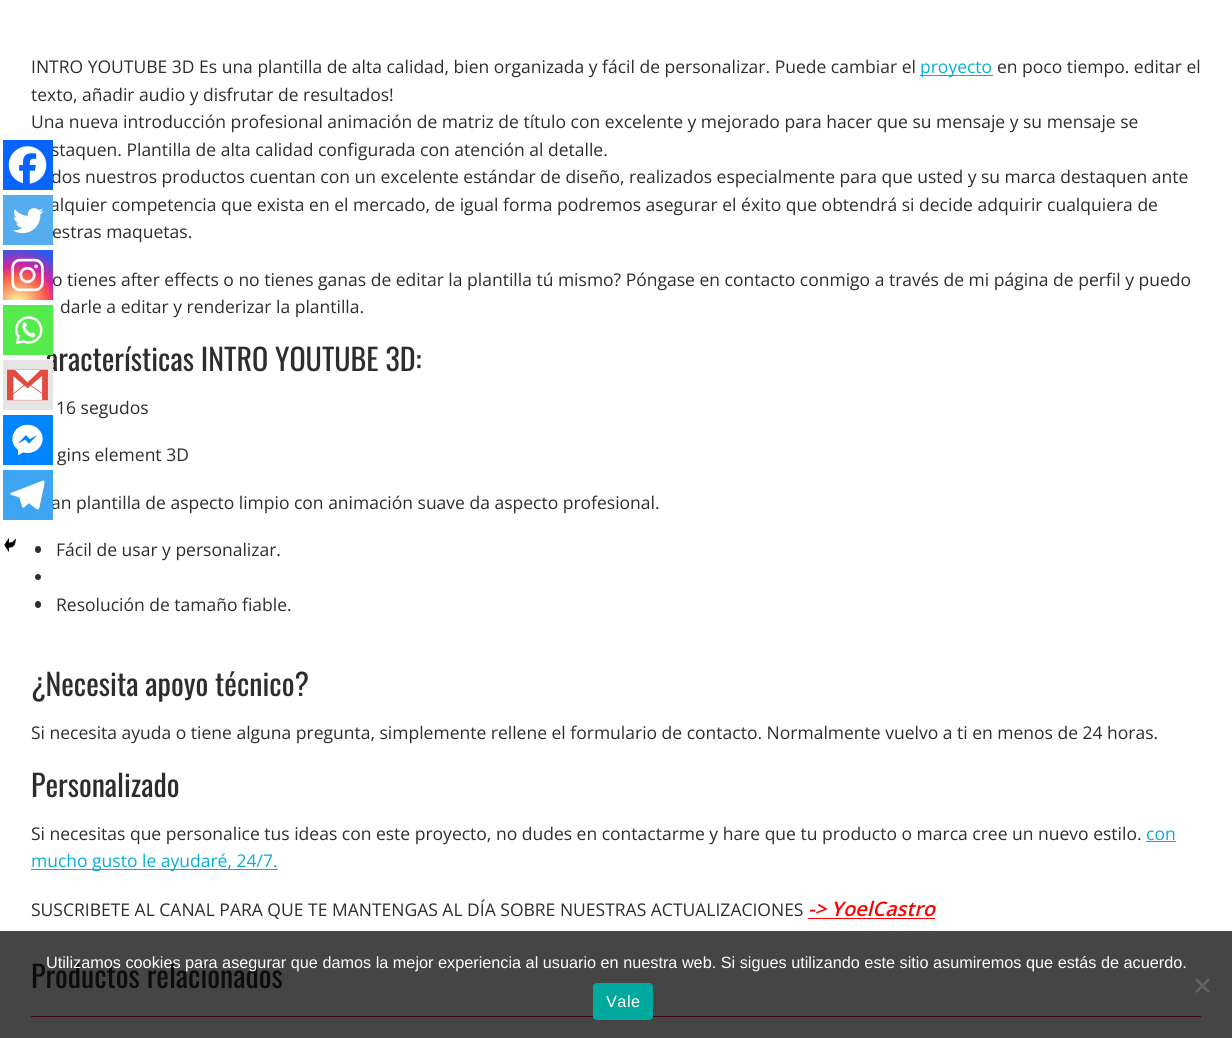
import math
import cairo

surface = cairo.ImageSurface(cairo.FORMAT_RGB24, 1232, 1038)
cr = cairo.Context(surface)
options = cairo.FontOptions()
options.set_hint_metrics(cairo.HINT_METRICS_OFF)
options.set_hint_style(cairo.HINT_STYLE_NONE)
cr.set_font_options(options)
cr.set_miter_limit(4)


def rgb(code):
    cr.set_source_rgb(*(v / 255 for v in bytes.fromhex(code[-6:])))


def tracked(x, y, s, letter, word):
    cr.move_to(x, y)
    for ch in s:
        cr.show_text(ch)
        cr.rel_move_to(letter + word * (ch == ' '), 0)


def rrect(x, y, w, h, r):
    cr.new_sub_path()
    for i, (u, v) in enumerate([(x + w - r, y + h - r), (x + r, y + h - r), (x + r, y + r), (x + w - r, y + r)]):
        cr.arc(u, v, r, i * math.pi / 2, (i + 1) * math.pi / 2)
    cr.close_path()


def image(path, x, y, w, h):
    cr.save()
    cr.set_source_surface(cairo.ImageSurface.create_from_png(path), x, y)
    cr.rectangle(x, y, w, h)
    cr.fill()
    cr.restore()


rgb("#ffffff")
cr.paint()
rgb("#454545")
cr.rectangle(0, 931, 1232, 107)
cr.fill()
rgb("#0084ff")
cr.rectangle(3, 415, 50, 50)
cr.fill()
image("img/6.png", 12, 424, 31, 32)
image("img/8.png", 4, 538, 12, 14)
rgb("#07afd4")
cr.rectangle(920, 75, 73, 1)
cr.fill()
rgb("#2d2d2d")
rrect(35, 546, 6, 7, 3)
cr.fill()
cr.arc(38, 577, 3, 0, 2 * math.pi)
cr.fill()
rrect(35, 601, 6, 7, 3)
cr.fill()
for x, y, w, h, color in [
    (1146, 841, 30, 1, "#07afd4"),
    (31, 869, 247, 1, "#07afd4"),
    (808, 918, 127, 1, "#ff0000"),
    (31, 1016, 1170, 1, "#450012"),
]:
    rgb(color)
    cr.rectangle(x, y, w, h)
    cr.fill()
rgb("#626262")
cr.new_path()
cr.move_to(1208, 978)
cr.line_to(1210, 980)
cr.line_to(1197, 993)
cr.line_to(1195, 991.5)
cr.close_path()
cr.fill()
cr.new_path()
cr.move_to(1195, 980)
cr.line_to(1197, 978)
cr.line_to(1210, 991.5)
cr.line_to(1208, 993)
cr.close_path()
cr.fill()
rgb("#00a99d")
rrect(593, 983, 60, 37, 4)
cr.fill()
cr.select_font_face("Open Sans")
cr.set_font_size(17.5)
rgb("#2d2d2d")
cr.move_to(31, 73)
cr.show_text("INTRO YOUTUBE 3D Es una plantilla de alta calidad, bien organizada y fácil de personalizar. Puede cambiar el")
rgb("#07afd4")
cr.move_to(920, 73)
cr.show_text("proyecto")
rgb("#2d2d2d")
for x, y, s in [
    (997, 73, "en poco tiempo. editar el"),
    (31, 101, "texto, añadir audio y disfrutar de resultados!"),
    (31, 128, "Una nueva introducción profesional animación de matriz de título con excelente y mejorado para hacer que su mensaje y su mensaje se"),
    (51, 156, "staquen. Plantilla de alta calidad configurada con atención al detalle."),
    (51, 183, "dos nuestros productos cuentan con un excelente estándar de diseño, realizados especialmente para que usted y su marca destaquen ante"),
]:
    cr.move_to(x, y)
    cr.show_text(s)
rgb("#0765fe")
cr.rectangle(3, 140, 50, 50)
cr.fill()
image("img/1.png", 8, 146, 39, 38)
rgb("#2d2d2d")
cr.move_to(50, 211)
cr.show_text("alquier competencia que exista en el mercado, de igual forma podremos asegurar el éxito que obtendrá si decide adquirir cualquiera de")
rgb("#55acee")
cr.rectangle(3, 195, 50, 50)
cr.fill()
image("img/2.png", 13, 208, 31, 26)
rgb("#2d2d2d")
cr.move_to(52, 238)
cr.show_text("estras maquetas.")
cr.move_to(52, 286)
cr.show_text("o tienes after effects o no tienes ganas de editar la plantilla tú mismo? Póngase en contacto conmigo a través de mi página de perfil y puedo")
gradient = cairo.RadialGradient(18, 304, 0, 18, 304, 64)
gradient.add_color_stop_rgba(0, 0.992, 0.957, 0.592, 1)
gradient.add_color_stop_rgba(0.05, 0.992, 0.957, 0.592, 1)
gradient.add_color_stop_rgba(0.45, 0.992, 0.349, 0.286, 1)
gradient.add_color_stop_rgba(0.6, 0.839, 0.141, 0.624, 1)
gradient.add_color_stop_rgba(0.9, 0.157, 0.353, 0.922, 1)
cr.set_source(gradient)
cr.rectangle(3, 250, 50, 50)
cr.fill()
image("img/3.png", 11, 258, 33, 34)
rgb("#2d2d2d")
cr.move_to(60, 313)
cr.show_text("darle a editar y renderizar la plantilla.")
cr.select_font_face("Oswald")
cr.set_font_size(30)
cr.move_to(46, 371)
cr.show_text("aracterísticas INTRO YOUTUBE 3D:")
rgb("#e5e5e5")
cr.rectangle(3, 360, 50, 50)
cr.fill()
image("img/5.png", 7, 369, 41, 32)
rgb("#55eb4c")
cr.rectangle(3, 305, 50, 50)
cr.fill()
image("img/4.png", 15, 316, 28, 28)
cr.select_font_face("Open Sans")
cr.set_font_size(17.5)
rgb("#2d2d2d")
for x, y, s in [
    (56, 414, "16 segudos"),
    (57, 461, "gins element 3D"),
    (51, 509, "an plantilla de aspecto limpio con animación suave da aspecto profesional."),
]:
    cr.move_to(x, y)
    cr.show_text(s)
rgb("#3da5f1")
cr.rectangle(3, 470, 50, 50)
cr.fill()
image("img/7.png", 10, 480, 35, 30)
rgb("#2d2d2d")
cr.move_to(56, 556)
cr.show_text("Fácil de usar y personalizar.")
cr.move_to(56, 611)
cr.show_text("Resolución de tamaño fiable.")
cr.select_font_face("Oswald")
cr.set_font_size(30)
cr.move_to(31, 696)
cr.show_text("¿Necesita apoyo técnico?")
cr.select_font_face("Open Sans")
cr.set_font_size(17.5)
cr.move_to(31, 739)
cr.show_text("Si necesita ayuda o tiene alguna pregunta, simplemente rellene el formulario de contacto. Normalmente vuelvo a ti en menos de 24 horas.")
cr.select_font_face("Oswald")
cr.set_font_size(30)
cr.move_to(31, 797)
cr.show_text("Personalizado")
cr.select_font_face("Open Sans")
cr.set_font_size(17.5)
cr.move_to(31, 840)
cr.show_text("Si necesitas que personalice tus ideas con este proyecto, no dudes en contactarme y hare que tu producto o marca cree un nuevo estilo.")
rgb("#07afd4")
cr.move_to(1146, 840)
cr.show_text("con")
cr.move_to(31, 867)
cr.show_text("mucho gusto le ayudaré, 24/7.")
rgb("#2d2d2d")
cr.move_to(31, 916)
cr.show_text("SUSCRIBETE AL CANAL PARA QUE TE MANTENGAS AL DÍA SOBRE NUESTRAS ACTUALIZACIONES")
cr.select_font_face("Open Sans SemiBold", cairo.FONT_SLANT_ITALIC)
cr.set_font_size(20)
rgb("#ff0000")
cr.move_to(808, 916)
cr.show_text("-> YoelCastro")
cr.select_font_face("Oswald")
cr.set_font_size(30)
rgb("#0c0c0c")
cr.move_to(31, 988)
cr.show_text("Productos relacionados")
cr.select_font_face("Liberation Sans")
cr.set_font_size(16.25)
rgb("#ffffff")
cr.move_to(46, 968)
cr.show_text("Utilizamos cookies para asegurar que damos la mejor experiencia al usuario en nuestra web. Si sigues utilizando este sitio asumiremos que estás de acuerdo.")
tracked(606, 1007, "Vale", 0.5, 0)
surface.write_to_png("page.png")
